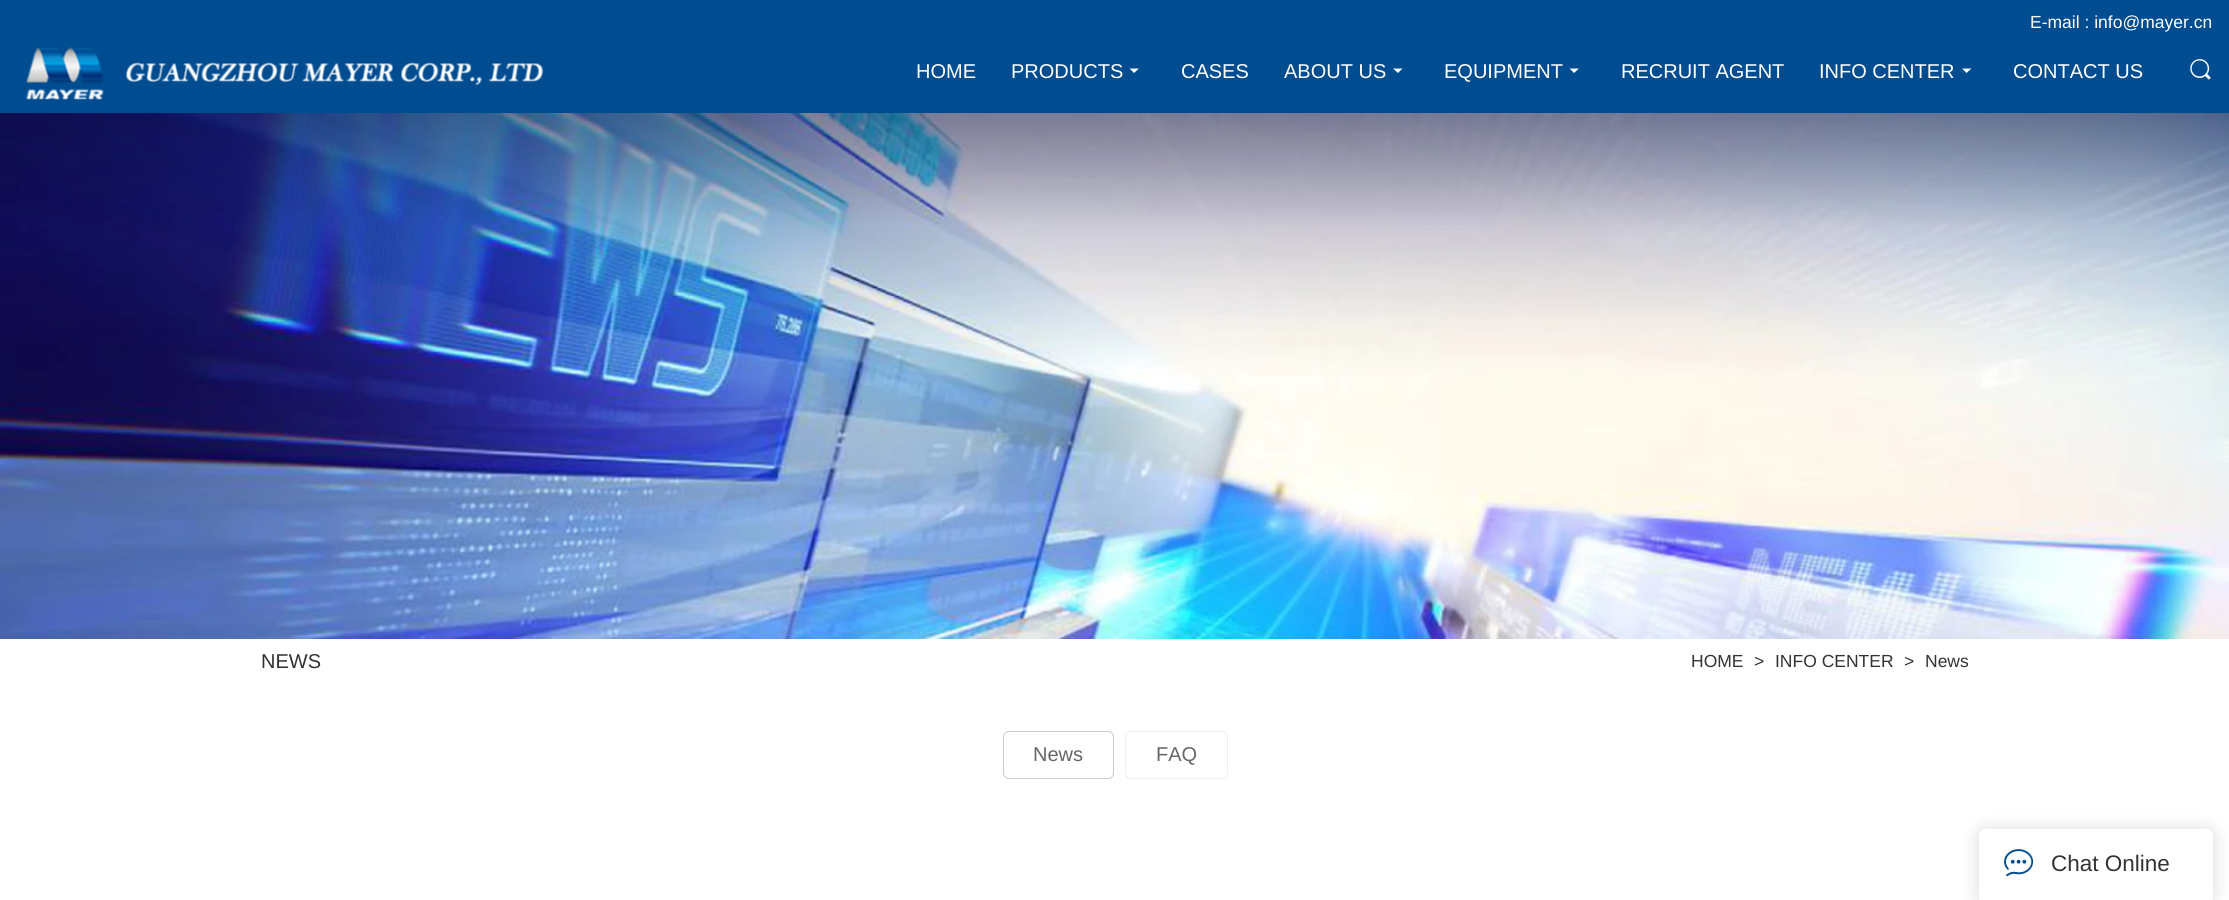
import math
import cairo

surface = cairo.ImageSurface(cairo.FORMAT_RGB24, 2229, 900)
cr = cairo.Context(surface)
options = cairo.FontOptions()
options.set_hint_metrics(cairo.HINT_METRICS_OFF)
options.set_hint_style(cairo.HINT_STYLE_NONE)
cr.set_font_options(options)
cr.set_miter_limit(4)


def rgb(code):
    cr.set_source_rgb(*(v / 255 for v in bytes.fromhex(code[-6:])))


def rrect(x, y, w, h, r):
    cr.new_sub_path()
    for i, (u, v) in enumerate([(x + w - r, y + h - r), (x + r, y + h - r), (x + r, y + r), (x + w - r, y + r)]):
        cr.arc(u, v, r, i * math.pi / 2, (i + 1) * math.pi / 2)
    cr.close_path()


def soft_shadow(x, y, w, h, r, blur, alpha):
    cr.push_group_with_content(cairo.CONTENT_ALPHA)
    cr.set_operator(cairo.OPERATOR_SOURCE)
    for i in range(15, -16, -2):
        e = blur * i / 6
        if min(w, h) + 2 * e > 0:
            cr.set_source_rgba(0, 0, 0, alpha * math.erfc((i - 1) / 8.5) / 2)
            rrect(x - e, y - e, w + 2 * e, h + 2 * e, max(0, min(r + e + blur * .6, min(w, h) / 2 + e)))
            cr.fill()
    cr.mask(cr.pop_group())


def image(path, x, y, w, h):
    cr.save()
    cr.set_source_surface(cairo.ImageSurface.create_from_png(path), x, y)
    cr.rectangle(x, y, w, h)
    cr.fill()
    cr.restore()


rgb("#ffffff")
cr.paint()
rgb("#004c90")
cr.rectangle(0, 0, 2229, 113)
cr.fill()
image("img/1.png", 26, 47, 518, 53)
rgb("#ffffff")
cr.new_path()
cr.move_to(1129.5, 68.5)
cr.line_to(1139, 68.5)
cr.line_to(1134, 73)
cr.close_path()
cr.fill()
cr.new_path()
cr.move_to(1393, 68.5)
cr.line_to(1402.5, 68.5)
cr.line_to(1398, 73)
cr.close_path()
cr.fill()
cr.new_path()
cr.move_to(1569.5, 68.5)
cr.line_to(1579, 68.5)
cr.line_to(1574, 73)
cr.close_path()
cr.fill()
cr.new_path()
cr.move_to(1962, 68.5)
cr.line_to(1971.5, 68.5)
cr.line_to(1966.5, 73)
cr.close_path()
cr.fill()
image("img/2.png", 2190, 59, 21, 21)
image("img/3.png", 0, 113, 2229, 526)
rrect(1003.5, 731.5, 110, 47, 5.5)
rgb("#cccccc")
cr.set_line_width(1)
cr.stroke()
rrect(1125.5, 731.5, 102, 47, 5.5)
rgb("#eeeeee")
cr.stroke()
rgb("#000000")
soft_shadow(1979, 830, 234, 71, 6, 9.5, 0.15)
rgb("#ffffff")
cr.new_path()
cr.move_to(1985, 829)
cr.line_to(2207, 829)
cr.curve_to(2210.5, 829, 2213, 831.5, 2213, 835)
cr.line_to(2213, 900)
cr.line_to(1979, 900)
cr.line_to(1979, 835)
cr.curve_to(1979, 831.5, 1981.5, 829, 1985, 829)
cr.close_path()
cr.fill()
image("img/4.png", 2004, 849, 30, 28)
cr.select_font_face("Liberation Sans")
cr.set_font_size(17.5)
cr.move_to(2030, 28)
cr.show_text("E-mail : info@mayer.cn")
cr.set_font_size(20)
for x, y, s in [
    (916, 78, "HOME"),
    (1011, 78, "PRODUCTS"),
    (1181, 78, "CASES"),
    (1284, 78, "ABOUT US"),
    (1444, 78, "EQUIPMENT"),
    (1621, 78, "RECRUIT AGENT"),
    (1819, 78, "INFO CENTER"),
    (2013, 78, "CONTACT US"),
]:
    cr.move_to(x, y)
    cr.show_text(s)
rgb("#333333")
cr.move_to(261, 668)
cr.show_text("NEWS")
cr.set_font_size(17.5)
for x, y, s in [
    (1691, 667, "HOME"),
    (1754, 667, ">"),
    (1775, 667, "INFO CENTER"),
    (1904, 667, ">"),
    (1925, 667, "News"),
]:
    cr.move_to(x, y)
    cr.show_text(s)
cr.set_font_size(20)
rgb("#666666")
cr.move_to(1033, 761)
cr.show_text("News")
cr.move_to(1156, 761)
cr.show_text("FAQ")
cr.set_font_size(22.5)
rgb("#333333")
cr.move_to(2051, 871)
cr.show_text("Chat Online")
surface.write_to_png("page.png")
